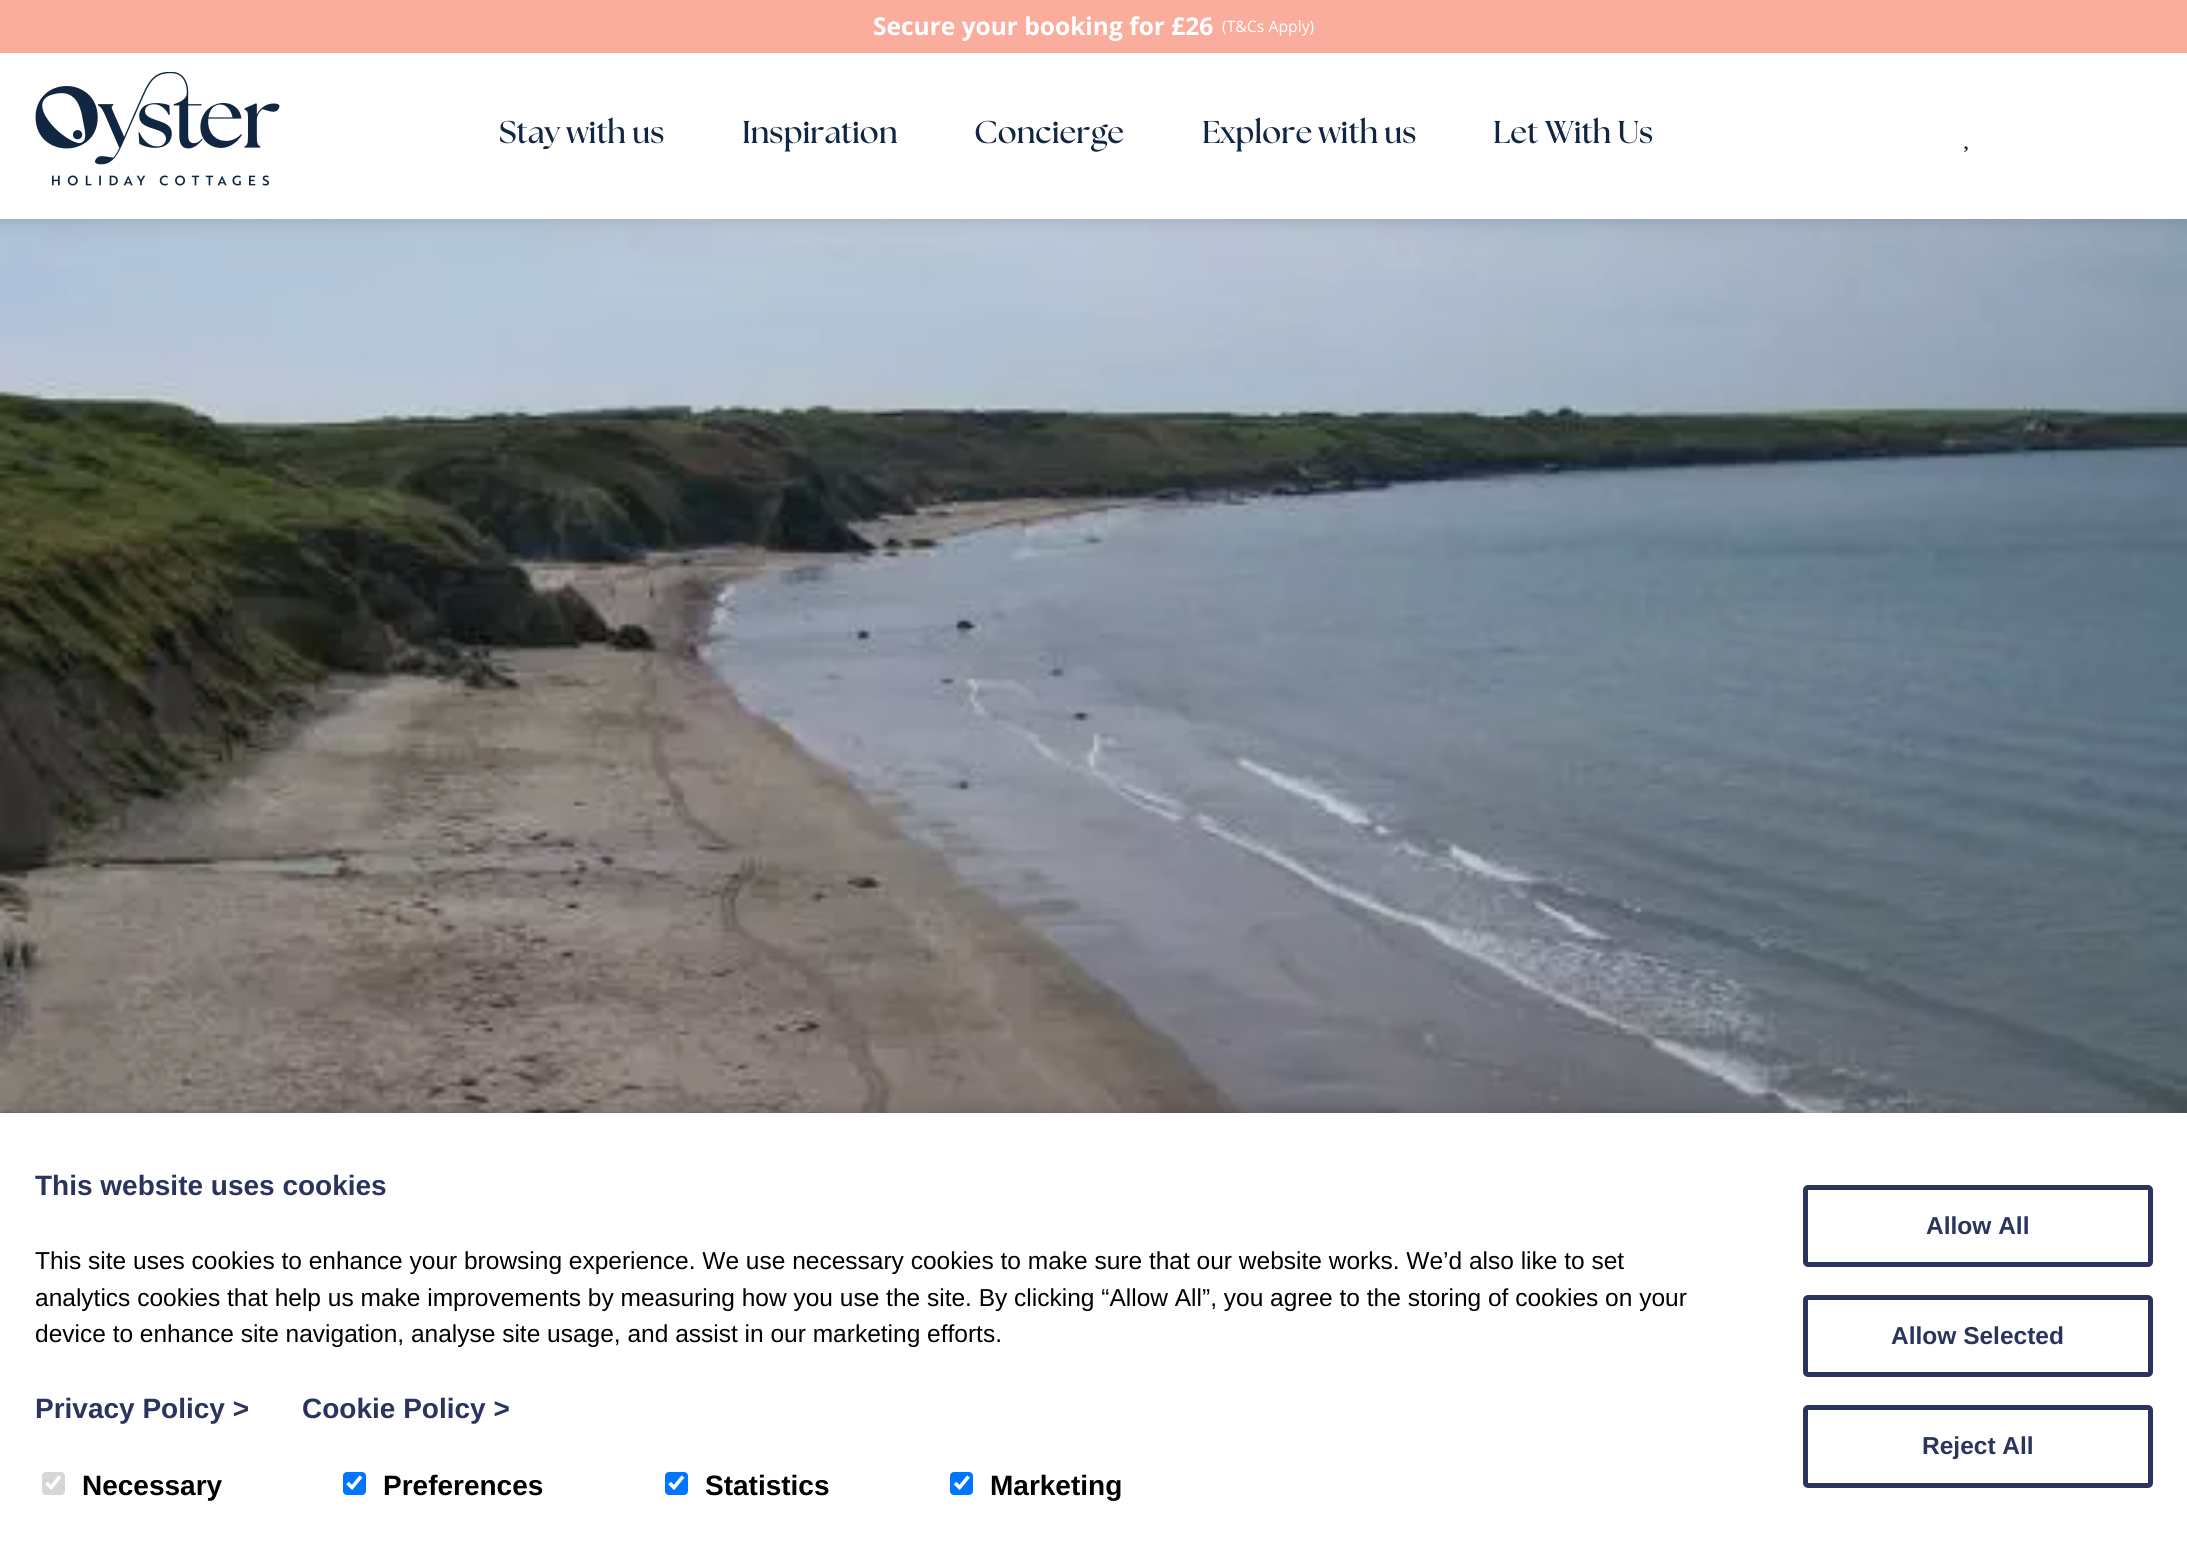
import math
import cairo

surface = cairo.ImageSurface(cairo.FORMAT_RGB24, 2187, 1559)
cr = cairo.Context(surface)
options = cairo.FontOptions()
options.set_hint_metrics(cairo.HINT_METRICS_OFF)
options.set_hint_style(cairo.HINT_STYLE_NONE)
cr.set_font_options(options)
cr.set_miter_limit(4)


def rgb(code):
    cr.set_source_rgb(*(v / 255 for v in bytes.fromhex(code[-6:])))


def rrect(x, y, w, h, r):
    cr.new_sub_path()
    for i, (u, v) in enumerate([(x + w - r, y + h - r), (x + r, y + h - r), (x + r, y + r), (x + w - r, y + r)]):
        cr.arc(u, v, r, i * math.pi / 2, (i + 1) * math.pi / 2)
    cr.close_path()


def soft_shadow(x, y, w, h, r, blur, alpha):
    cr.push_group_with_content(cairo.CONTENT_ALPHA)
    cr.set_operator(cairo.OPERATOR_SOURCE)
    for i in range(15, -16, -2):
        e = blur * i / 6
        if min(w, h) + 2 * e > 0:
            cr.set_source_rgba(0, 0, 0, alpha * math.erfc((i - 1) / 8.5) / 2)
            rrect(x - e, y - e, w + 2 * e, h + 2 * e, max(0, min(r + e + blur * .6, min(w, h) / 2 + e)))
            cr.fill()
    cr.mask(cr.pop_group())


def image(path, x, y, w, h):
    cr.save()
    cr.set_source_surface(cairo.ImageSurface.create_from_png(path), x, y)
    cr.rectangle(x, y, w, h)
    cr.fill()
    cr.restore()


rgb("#ffffff")
cr.paint()
image("img/3.png", 0, 219, 2187, 894)
rgb("#102623")
soft_shadow(0, 0, 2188, 219, 0, 9, 0.2)
rgb("#ffffff")
cr.rectangle(0, 53, 2187, 166)
cr.fill()
rgb("#faad9d")
cr.rectangle(0, 0, 2187, 53)
cr.fill()
image("img/1.png", 35, 72, 245, 114)
image("img/2.png", 1964, 146, 4, 6)
rgb("#000000")
soft_shadow(0, 1113, 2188, 446, 0, 9, 0.2)
rgb("#ffffff")
cr.rectangle(0, 1113, 2187, 446)
cr.fill()
rgb("#d6d6d6")
rrect(42, 1472, 23, 23, 4)
cr.fill()
cr.new_path()
cr.move_to(46.5, 1483)
cr.line_to(51, 1487.5)
cr.line_to(60, 1476.5)
rgb("#ffffff")
cr.set_line_width(3.6)
cr.stroke()
rgb("#0075ff")
rrect(343, 1472, 23, 23, 4)
cr.fill()
cr.new_path()
cr.move_to(347.5, 1483)
cr.line_to(352, 1487.5)
cr.line_to(361, 1476.5)
rgb("#ffffff")
cr.stroke()
rgb("#0075ff")
rrect(665, 1472, 23, 23, 4)
cr.fill()
cr.new_path()
cr.move_to(669.5, 1483)
cr.line_to(674, 1487.5)
cr.line_to(683, 1476.5)
rgb("#ffffff")
cr.stroke()
rgb("#0075ff")
rrect(950, 1472, 23, 23, 4)
cr.fill()
cr.new_path()
cr.move_to(955, 1483)
cr.line_to(959.5, 1487.5)
cr.line_to(968.5, 1476.5)
rgb("#ffffff")
cr.stroke()
rrect(1805.5, 1187.5, 345, 77, 2.5)
rgb("#2a345d")
cr.set_line_width(5)
cr.stroke()
rrect(1805.5, 1297.5, 345, 77, 2.5)
cr.stroke()
rrect(1805.5, 1407.5, 345, 78, 2.5)
cr.stroke()
cr.select_font_face("Open Sans", cairo.FONT_SLANT_NORMAL, cairo.FONT_WEIGHT_BOLD)
cr.set_font_size(24.5)
rgb("#ffffff")
cr.move_to(873, 35)
cr.show_text("Secure your booking for £26")
cr.select_font_face("Open Sans")
cr.set_font_size(15.75)
cr.move_to(1222, 32)
cr.show_text("(T&Cs Apply)")
cr.select_font_face("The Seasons", cairo.FONT_SLANT_NORMAL, cairo.FONT_WEIGHT_BOLD)
cr.set_font_size(31.5)
rgb("#102641")
for x, y, s in [
    (499, 143, "Stay with us"),
    (742, 143, "Inspiration"),
    (974, 143, "Concierge"),
    (1202, 143, "Explore with us"),
    (1493, 143, "Let With Us"),
]:
    cr.move_to(x, y)
    cr.show_text(s)
cr.select_font_face("Liberation Sans", cairo.FONT_SLANT_NORMAL, cairo.FONT_WEIGHT_BOLD)
cr.set_font_size(28)
rgb("#2a345d")
cr.move_to(35, 1195)
cr.show_text("This website uses cookies")
cr.select_font_face("Liberation Sans")
cr.set_font_size(24.5)
rgb("#000000")
for x, y, s in [
    (35, 1269, "This site uses cookies to enhance your browsing experience. We use necessary cookies to make sure that our website works. We’d also like to set"),
    (35, 1306, "analytics cookies that help us make improvements by measuring how you use the site. By clicking “Allow All”, you agree to the storing of cookies on your"),
    (35, 1342, "device to enhance site navigation, analyse site usage, and assist in our marketing efforts."),
]:
    cr.move_to(x, y)
    cr.show_text(s)
cr.select_font_face("Liberation Sans", cairo.FONT_SLANT_NORMAL, cairo.FONT_WEIGHT_BOLD)
cr.set_font_size(28)
rgb("#2a345d")
cr.move_to(35, 1418)
cr.show_text("Privacy Policy >")
cr.move_to(302, 1418)
cr.show_text("Cookie Policy >")
rgb("#000000")
for x, y, s in [
    (82, 1495, "Necessary"),
    (383, 1495, "Preferences"),
    (705, 1495, "Statistics"),
    (990, 1495, "Marketing"),
]:
    cr.move_to(x, y)
    cr.show_text(s)
cr.set_font_size(24.5)
rgb("#2a345d")
for x, y, s in [
    (1926, 1234, "Allow All"),
    (1891, 1344, "Allow Selected"),
    (1922, 1454, "Reject All"),
]:
    cr.move_to(x, y)
    cr.show_text(s)
surface.write_to_png("page.png")
